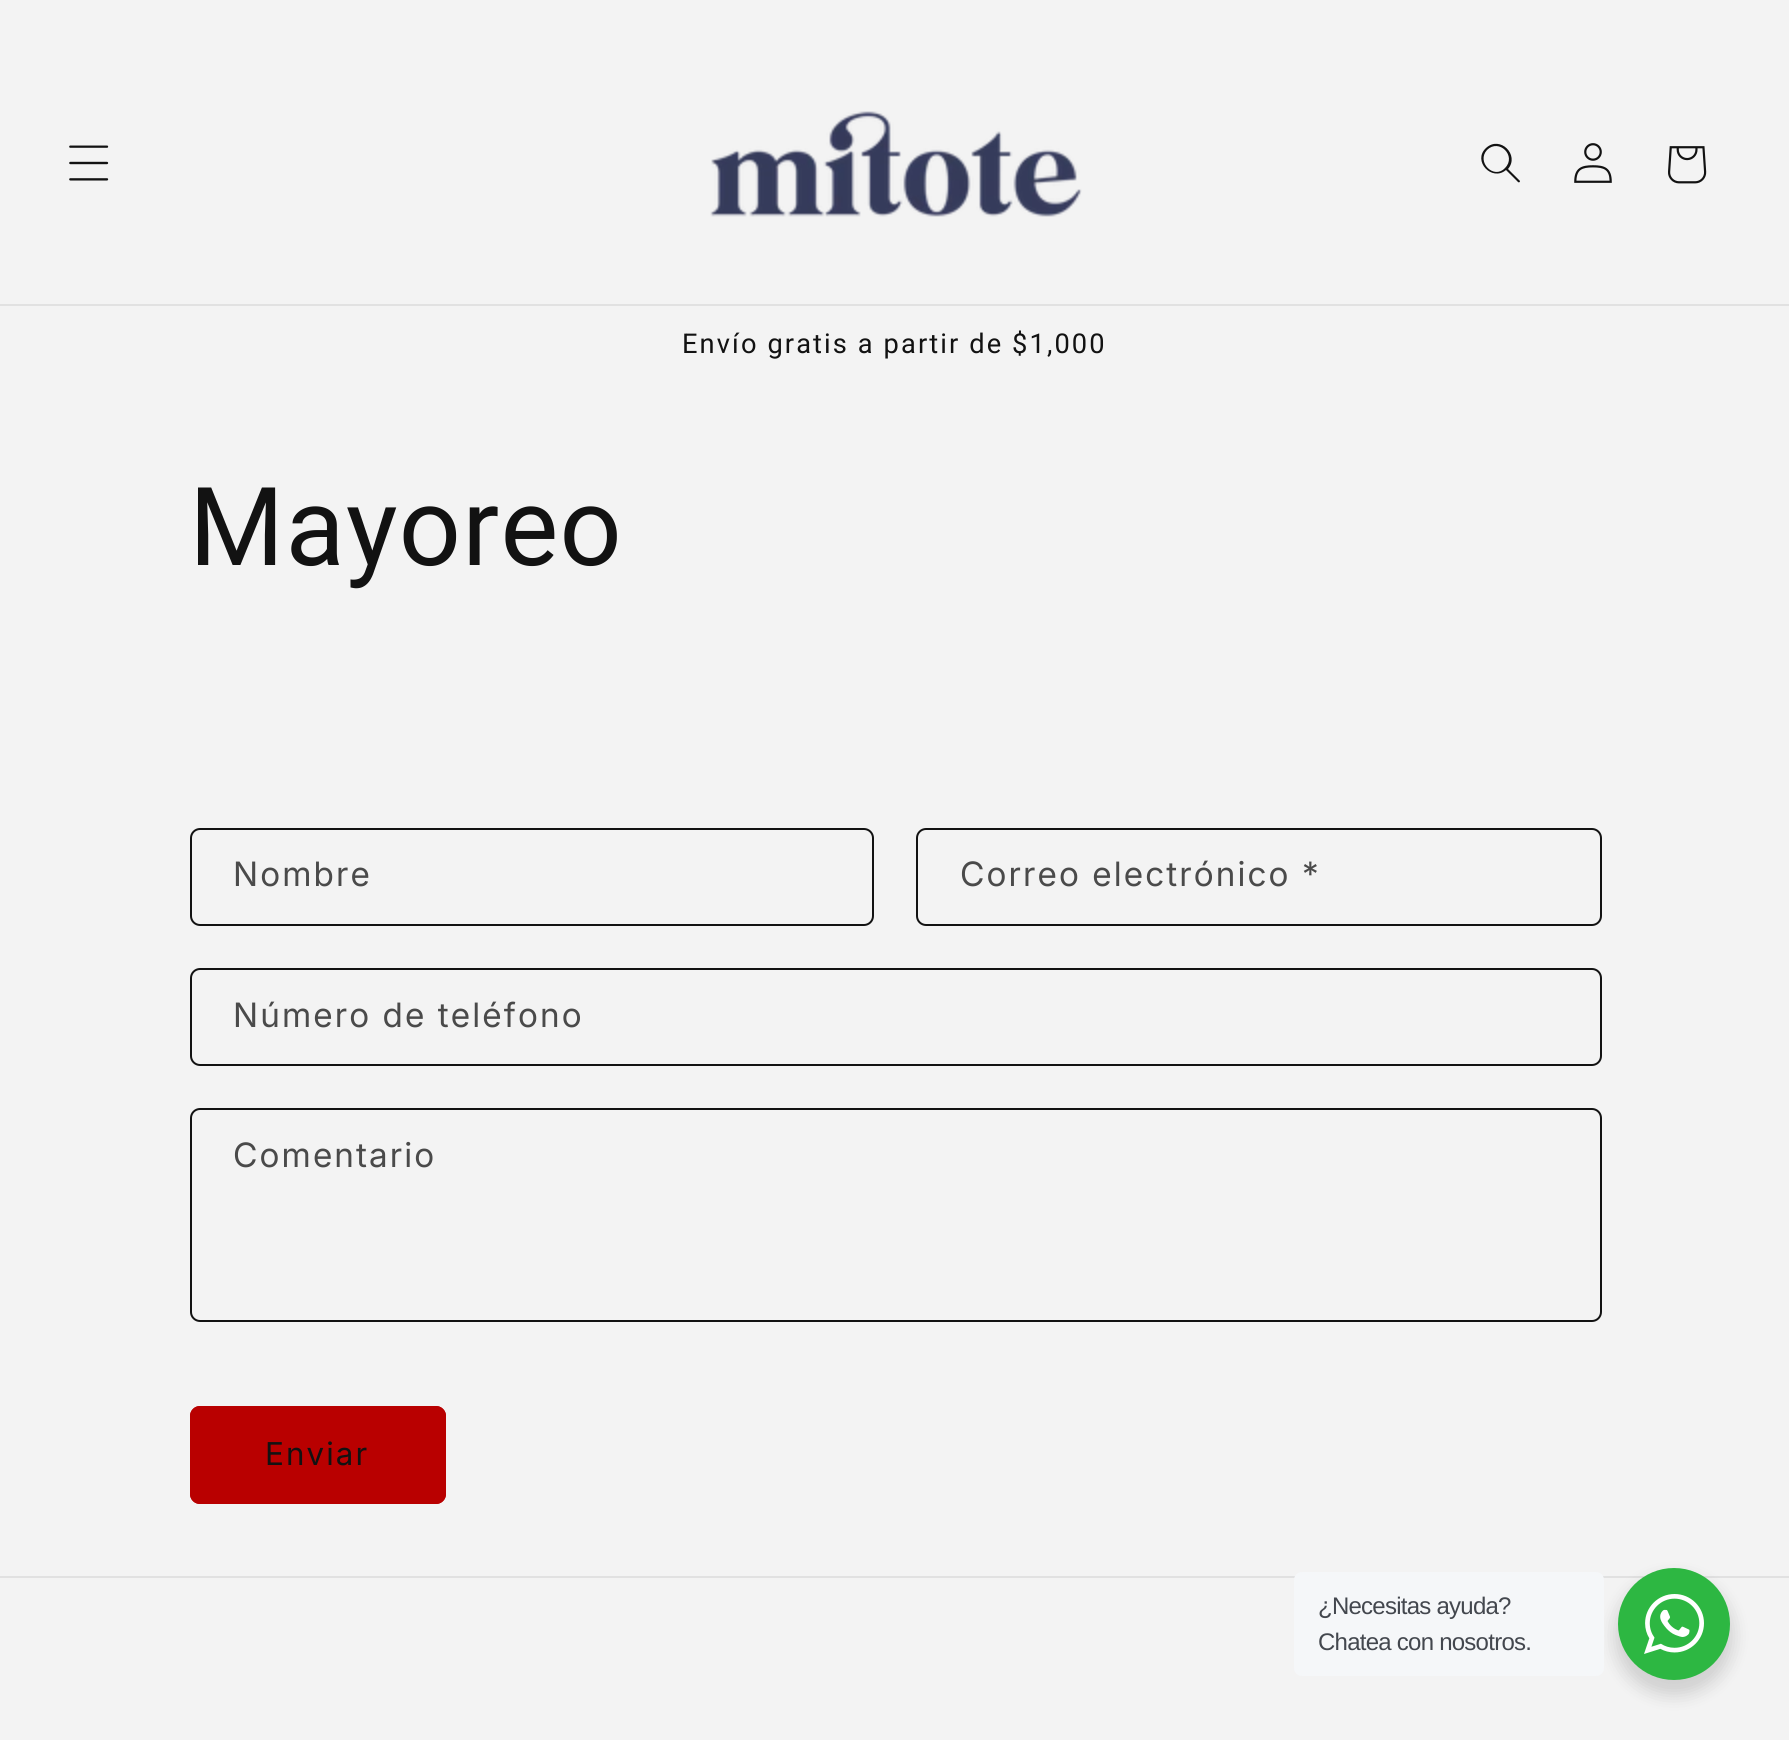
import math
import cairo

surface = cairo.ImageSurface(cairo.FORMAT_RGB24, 1789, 1740)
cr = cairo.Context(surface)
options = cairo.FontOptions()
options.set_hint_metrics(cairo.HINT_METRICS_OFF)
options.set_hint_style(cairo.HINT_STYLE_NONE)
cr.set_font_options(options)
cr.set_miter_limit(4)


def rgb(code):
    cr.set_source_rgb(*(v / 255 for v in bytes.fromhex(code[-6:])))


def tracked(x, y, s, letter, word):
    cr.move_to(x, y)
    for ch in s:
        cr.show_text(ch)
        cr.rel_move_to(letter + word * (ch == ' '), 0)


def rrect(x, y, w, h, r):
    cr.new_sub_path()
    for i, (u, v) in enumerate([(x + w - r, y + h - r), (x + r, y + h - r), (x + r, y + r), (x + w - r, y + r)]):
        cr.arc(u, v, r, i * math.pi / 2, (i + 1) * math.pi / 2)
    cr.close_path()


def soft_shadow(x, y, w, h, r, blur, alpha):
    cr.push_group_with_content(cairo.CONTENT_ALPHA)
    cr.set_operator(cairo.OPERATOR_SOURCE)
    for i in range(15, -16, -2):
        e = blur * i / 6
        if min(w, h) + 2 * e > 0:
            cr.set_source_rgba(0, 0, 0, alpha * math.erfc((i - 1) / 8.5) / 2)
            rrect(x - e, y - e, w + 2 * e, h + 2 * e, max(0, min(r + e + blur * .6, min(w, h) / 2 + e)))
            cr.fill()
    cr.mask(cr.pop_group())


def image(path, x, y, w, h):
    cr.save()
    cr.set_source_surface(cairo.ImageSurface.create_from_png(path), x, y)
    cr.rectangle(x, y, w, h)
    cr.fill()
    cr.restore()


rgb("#f3f3f3")
cr.paint()
rgb("#e1e1e1")
cr.rectangle(0, 304, 1789, 2)
cr.fill()
image("img/1.png", 69, 145, 40, 36)
image("img/2.png", 710, 111, 372, 106)
rgb("#121212")
cr.set_fill_rule(cairo.FILL_RULE_EVEN_ODD)
cr.new_path()
cr.move_to(1505, 168)
cr.curve_to(1494, 180, 1476, 162, 1487, 150)
cr.curve_to(1499, 138, 1517, 156, 1505, 168)
cr.move_to(1506, 170)
cr.curve_to(1492, 182, 1472, 161, 1486, 148)
cr.curve_to(1500, 135, 1520, 155, 1508, 169)
cr.line_to(1520, 181)
cr.curve_to(1520, 182, 1519, 183, 1518, 182)
cr.close_path()
cr.fill()
image("img/3.png", 1574, 143, 38, 40)
image("img/4.png", 1668, 146, 39, 38)
rrect(191, 829, 682, 96, 9)
cr.stroke()
rrect(917, 829, 684, 96, 9)
cr.stroke()
rrect(191, 969, 1410, 96, 9)
cr.stroke()
rrect(191, 1109, 1410, 212, 9)
cr.stroke()
rgb("#b90000")
rrect(190, 1406, 256, 98, 10)
cr.fill()
rrect(191, 1407, 254, 96, 9)
cr.stroke()
rgb("#e1e1e1")
cr.rectangle(0, 1576, 1789, 2)
cr.fill()
rgb("#000000")
soft_shadow(1614, 1576, 120, 120, 60, 8, 0.14)
rgb("#f5f7f9")
rrect(1294, 1572, 310, 104, 8)
cr.fill()
rgb("#2db742")
cr.arc(1674, 1624, 56, 0, 2 * math.pi)
cr.fill()
image("img/5.png", 1644, 1594, 60, 60)
cr.select_font_face("Roboto")
cr.set_font_size(27.25)
rgb("#121212")
tracked(682, 353, "Envío gratis a partir de $1,000", 2.1, 0)
cr.set_font_size(109)
tracked(189, 565, "Mayoreo", 1.25, 0)
cr.select_font_face("Inter")
cr.set_font_size(33.6)
rgb("#4a4a4a")
for x, y, s in [
    (233, 886, "Nombre"),
    (960, 886, "Correo electrónico"),
    (1302, 886, "*"),
    (233, 1027, "Número de teléfono"),
    (233, 1167, "Comentario"),
]:
    tracked(x, y, s, 2.1, 0)
cr.select_font_face("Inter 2")
cr.set_font_size(31.5)
rgb("#121212")
tracked(265, 1465, "Enviar", 2.1, 0)
cr.select_font_face("Liberation Sans")
cr.set_font_size(24)
rgb("#43474e")
tracked(1318, 1614, "¿Necesitas ayuda?", -0.75, 0)
tracked(1318, 1650, "Chatea con nosotros.", -0.75, 0)
surface.write_to_png("page.png")
